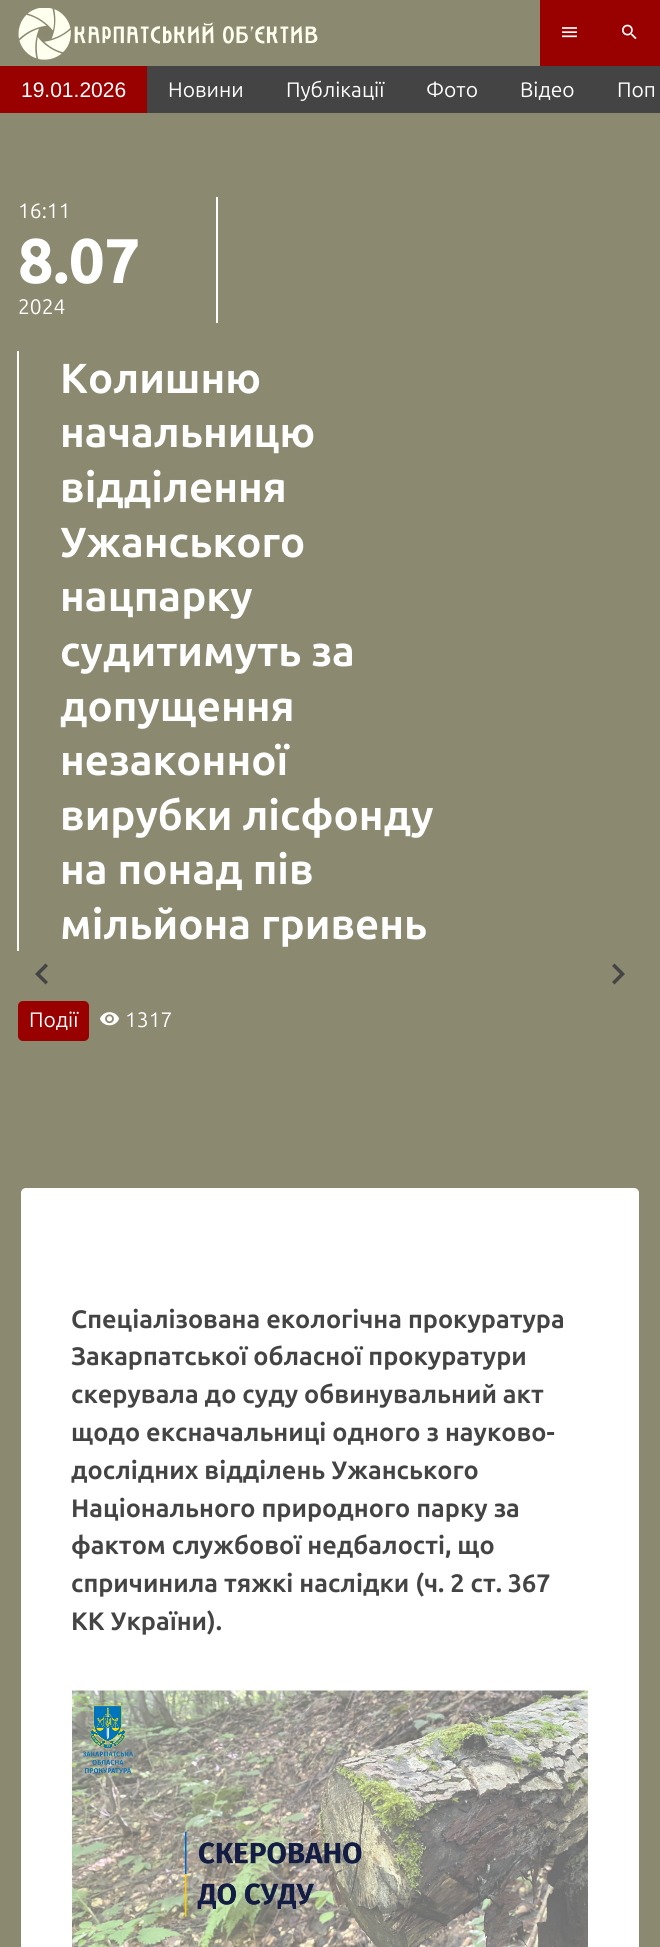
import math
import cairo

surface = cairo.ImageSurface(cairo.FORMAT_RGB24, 660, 1947)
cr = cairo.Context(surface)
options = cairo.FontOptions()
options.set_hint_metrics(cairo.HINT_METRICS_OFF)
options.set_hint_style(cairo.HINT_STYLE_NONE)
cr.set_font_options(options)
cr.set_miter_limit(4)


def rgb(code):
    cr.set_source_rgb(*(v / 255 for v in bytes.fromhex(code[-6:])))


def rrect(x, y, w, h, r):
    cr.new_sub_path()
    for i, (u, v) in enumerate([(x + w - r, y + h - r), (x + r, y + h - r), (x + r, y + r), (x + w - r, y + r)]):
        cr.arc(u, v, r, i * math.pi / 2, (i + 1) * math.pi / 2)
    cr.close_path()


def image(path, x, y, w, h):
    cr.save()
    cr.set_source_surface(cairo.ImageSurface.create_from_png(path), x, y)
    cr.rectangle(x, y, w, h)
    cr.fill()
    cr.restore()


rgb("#8b8970")
cr.paint()
image("img/1.png", 18, 8, 300, 52)
rgb("#990000")
cr.rectangle(540, 0, 120, 66)
cr.fill()
image("img/2.png", 562, 27, 15, 11)
image("img/3.png", 622, 24, 15, 16)
for x, y, w, h, color in [
    (147, 66, 513, 47, "#444444"),
    (0, 66, 147, 47, "#990000"),
    (216, 197, 2, 126, "#ffffff"),
    (17, 351, 2, 600, "#ffffff"),
]:
    rgb(color)
    cr.rectangle(x, y, w, h)
    cr.fill()
rgb("#990000")
rrect(18, 1001, 71, 40, 5)
cr.fill()
image("img/4.png", 99, 1012, 21, 14)
rgb("#444444")
cr.new_path()
cr.move_to(48, 982)
cr.line_to(45.5, 984.5)
cr.line_to(35, 974)
cr.line_to(45.5, 963.5)
cr.line_to(48, 966)
cr.line_to(40, 974)
cr.close_path()
cr.fill()
cr.new_path()
cr.move_to(612, 982)
cr.line_to(620, 974)
cr.line_to(612, 966)
cr.line_to(614.5, 963.5)
cr.line_to(625, 974)
cr.line_to(614.5, 984.5)
cr.close_path()
cr.fill()
rgb("#ffffff")
rrect(21, 1188, 618, 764, 5)
cr.fill()
image("img/5.png", 72, 1690, 516, 257)
cr.select_font_face("Liberation Sans")
cr.set_font_size(21)
cr.move_to(21, 97)
cr.show_text("19.01.2026")
cr.select_font_face("Ubuntu")
for x, y, s in [
    (168, 97, "Новини"),
    (286, 97, "Публікації"),
    (426, 97, "Фото"),
    (520, 97, "Відео"),
    (617, 97, "Поп"),
    (18, 218, "16:11"),
]:
    cr.move_to(x, y)
    cr.show_text(s)
cr.select_font_face("Ubuntu ExtraBold")
cr.set_font_size(63)
cr.move_to(18, 283)
cr.show_text("8.07")
cr.select_font_face("Ubuntu")
cr.set_font_size(21)
cr.move_to(18, 314)
cr.show_text("2024")
cr.select_font_face("Ubuntu", cairo.FONT_SLANT_NORMAL, cairo.FONT_WEIGHT_BOLD)
cr.set_font_size(42)
for x, y, s in [
    (60, 393, "Колишню"),
    (60, 447, "начальницю"),
    (60, 502, "відділення"),
    (60, 557, "Ужанського"),
    (60, 611, "нацпарку"),
    (60, 666, "судитимуть за"),
    (60, 721, "допущення"),
    (60, 775, "незаконної"),
    (60, 830, "вирубки лісфонду"),
    (60, 884, "на понад пів"),
    (60, 939, "мільйона гривень"),
]:
    cr.move_to(x, y)
    cr.show_text(s)
cr.select_font_face("Ubuntu")
cr.set_font_size(21)
cr.move_to(29, 1027)
cr.show_text("Події")
cr.move_to(125, 1027)
cr.show_text("1317")
cr.select_font_face("Ubuntu", cairo.FONT_SLANT_NORMAL, cairo.FONT_WEIGHT_BOLD)
cr.set_font_size(25.25)
rgb("#444444")
for x, y, s in [
    (71, 1328, "Спеціалізована екологічна прокуратура"),
    (71, 1365, "Закарпатської обласної прокуратури"),
    (71, 1403, "скерувала до суду обвинувальний акт"),
    (71, 1441, "щодо ексначальниці одного з науково-"),
    (71, 1479, "дослідних відділень Ужанського"),
    (71, 1517, "Національного природного парку за"),
    (71, 1554, "фактом службової недбалості, що"),
    (71, 1592, "спричинила тяжкі наслідки (ч. 2 ст. 367"),
    (71, 1630, "КК України)."),
]:
    cr.move_to(x, y)
    cr.show_text(s)
surface.write_to_png("page.png")
